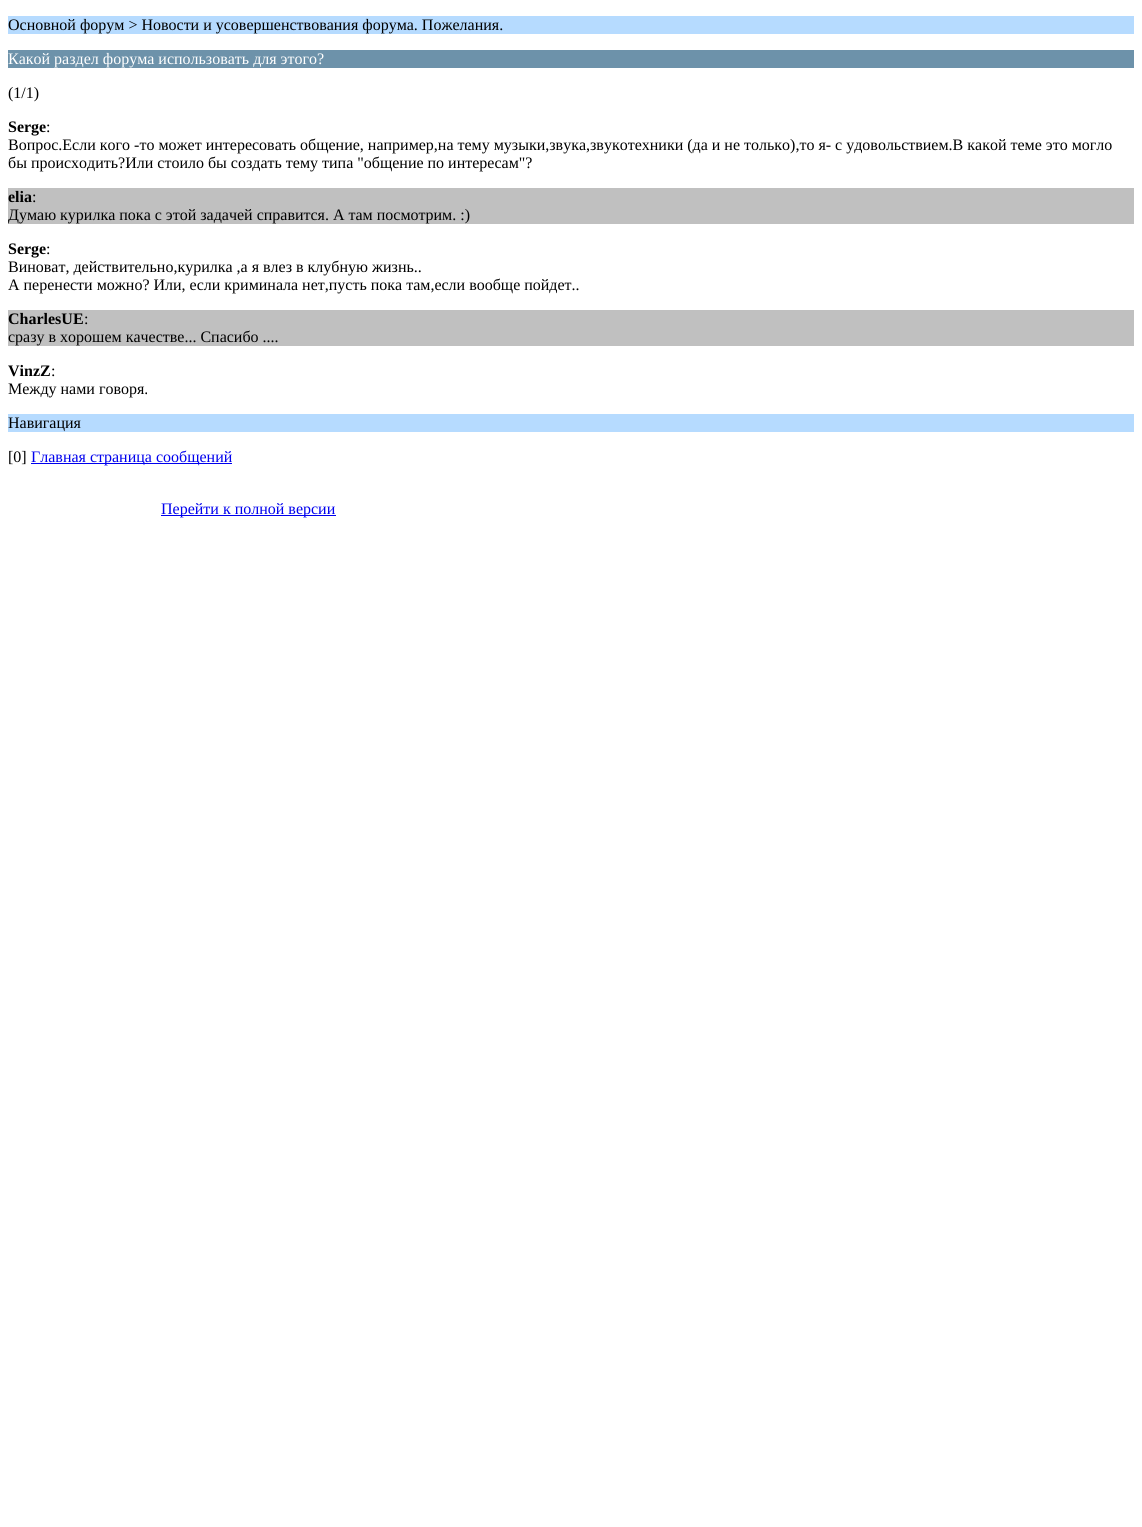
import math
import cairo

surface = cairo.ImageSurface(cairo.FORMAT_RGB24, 1142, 1527)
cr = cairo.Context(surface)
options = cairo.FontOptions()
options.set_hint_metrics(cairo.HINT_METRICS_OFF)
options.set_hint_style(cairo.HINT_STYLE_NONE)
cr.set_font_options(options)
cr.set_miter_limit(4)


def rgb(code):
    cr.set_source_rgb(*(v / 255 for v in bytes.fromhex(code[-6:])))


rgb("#ffffff")
cr.paint()
for x, y, w, h, color in [
    (8, 16, 1126, 18, "#b6dbff"),
    (8, 50, 1126, 18, "#6d92aa"),
    (8, 188, 1126, 36, "#c0c0c0"),
    (8, 310, 1126, 36, "#c0c0c0"),
    (8, 414, 1126, 18, "#b6dbff"),
    (31, 463, 201, 1, "#0000ee"),
    (161, 515, 175, 1, "#0000ee"),
]:
    rgb(color)
    cr.rectangle(x, y, w, h)
    cr.fill()
cr.select_font_face("Liberation Serif")
cr.set_font_size(16)
rgb("#000000")
cr.move_to(8, 30)
cr.show_text("Основной форум > Новости и усовершенствования форума. Пожелания.")
rgb("#ffffff")
cr.move_to(8, 64)
cr.show_text("Какой раздел форума использовать для этого?")
rgb("#000000")
cr.move_to(8, 98)
cr.show_text("(1/1)")
cr.select_font_face("Liberation Serif", cairo.FONT_SLANT_NORMAL, cairo.FONT_WEIGHT_BOLD)
cr.move_to(8, 132)
cr.show_text("Serge")
cr.select_font_face("Liberation Serif")
for x, y, s in [
    (46, 132, ":"),
    (8, 150, "Вопрос.Если кого -то может интересовать общение, например,на тему музыки,звука,звукотехники (да и не только),то я- с удовольствием.В какой теме это могло"),
    (8, 168, "бы происходить?Или стоило бы создать тему типа \"общение по интересам\"?"),
]:
    cr.move_to(x, y)
    cr.show_text(s)
cr.select_font_face("Liberation Serif", cairo.FONT_SLANT_NORMAL, cairo.FONT_WEIGHT_BOLD)
cr.move_to(8, 202)
cr.show_text("elia")
cr.select_font_face("Liberation Serif")
cr.move_to(32, 202)
cr.show_text(":")
cr.move_to(8, 220)
cr.show_text("Думаю курилка пока с этой задачей справится. А там посмотрим. :)")
cr.select_font_face("Liberation Serif", cairo.FONT_SLANT_NORMAL, cairo.FONT_WEIGHT_BOLD)
cr.move_to(8, 254)
cr.show_text("Serge")
cr.select_font_face("Liberation Serif")
for x, y, s in [
    (46, 254, ":"),
    (8, 272, "Виноват, действительно,курилка ,а я влез в клубную жизнь.."),
    (8, 290, "А перенести можно? Или, если криминала нет,пусть пока там,если вообще пойдет.."),
]:
    cr.move_to(x, y)
    cr.show_text(s)
cr.select_font_face("Liberation Serif", cairo.FONT_SLANT_NORMAL, cairo.FONT_WEIGHT_BOLD)
cr.move_to(8, 324)
cr.show_text("CharlesUE")
cr.select_font_face("Liberation Serif")
cr.move_to(84, 324)
cr.show_text(":")
cr.move_to(8, 342)
cr.show_text("сразу в хорошем качестве... Спасибо ....")
cr.select_font_face("Liberation Serif", cairo.FONT_SLANT_NORMAL, cairo.FONT_WEIGHT_BOLD)
cr.move_to(8, 376)
cr.show_text("VinzZ")
cr.select_font_face("Liberation Serif")
for x, y, s in [
    (51, 376, ":"),
    (8, 394, "Между нами говоря."),
    (8, 428, "Навигация"),
    (8, 462, "[0]"),
]:
    cr.move_to(x, y)
    cr.show_text(s)
rgb("#0000ee")
cr.move_to(31, 462)
cr.show_text("Главная страница сообщений")
cr.move_to(161, 514)
cr.show_text("Перейти к полной версии")
surface.write_to_png("page.png")
